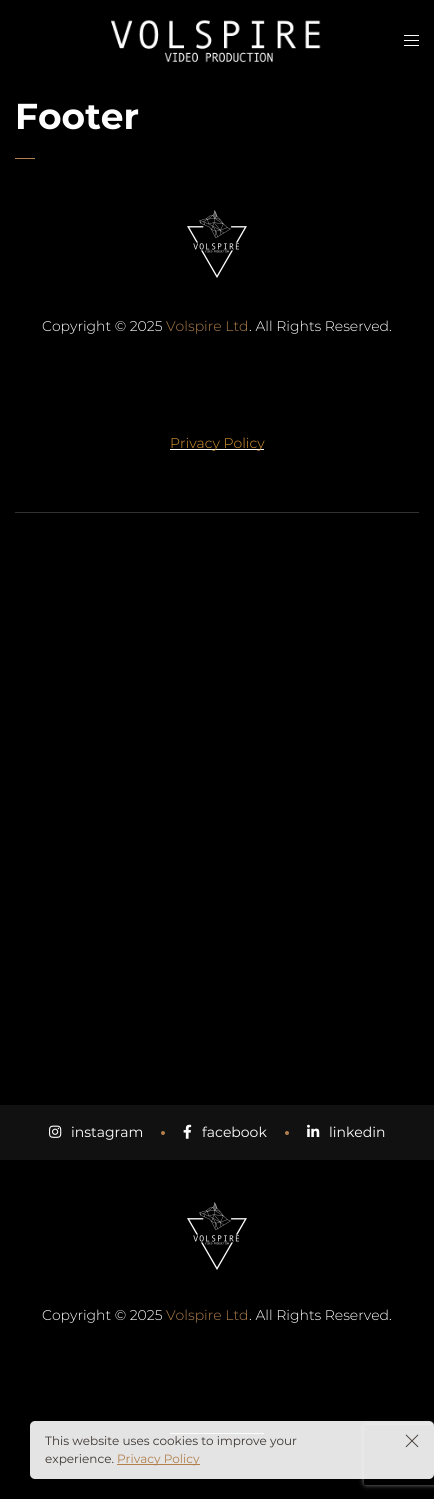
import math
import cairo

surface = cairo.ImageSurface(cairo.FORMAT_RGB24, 434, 1499)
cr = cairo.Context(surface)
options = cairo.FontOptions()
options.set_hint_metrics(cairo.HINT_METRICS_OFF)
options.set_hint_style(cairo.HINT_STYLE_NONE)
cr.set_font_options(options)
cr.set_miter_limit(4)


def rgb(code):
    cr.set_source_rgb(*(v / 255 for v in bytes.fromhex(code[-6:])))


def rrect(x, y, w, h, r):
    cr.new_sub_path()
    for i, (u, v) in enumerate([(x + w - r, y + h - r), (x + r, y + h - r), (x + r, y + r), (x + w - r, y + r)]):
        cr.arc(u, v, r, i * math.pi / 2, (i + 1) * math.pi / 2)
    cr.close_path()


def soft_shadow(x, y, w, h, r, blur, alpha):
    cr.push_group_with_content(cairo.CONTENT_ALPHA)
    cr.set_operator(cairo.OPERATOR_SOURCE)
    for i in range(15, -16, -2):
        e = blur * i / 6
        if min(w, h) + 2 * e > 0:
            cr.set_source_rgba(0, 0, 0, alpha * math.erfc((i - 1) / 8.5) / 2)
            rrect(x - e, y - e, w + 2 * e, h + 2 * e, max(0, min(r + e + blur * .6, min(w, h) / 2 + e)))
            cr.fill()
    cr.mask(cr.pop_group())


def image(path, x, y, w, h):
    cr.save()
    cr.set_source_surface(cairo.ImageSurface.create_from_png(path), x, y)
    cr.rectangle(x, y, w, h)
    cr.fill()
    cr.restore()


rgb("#000000")
cr.paint()
image("img/1.png", 111, 20, 210, 43)
for x, y, w, h, color in [
    (404, 35, 15, 1, "#ffffff"),
    (404, 40, 15, 1, "#ffffff"),
    (404, 45, 15, 1, "#ffffff"),
    (15, 158, 20, 1, "#b07f4c"),
]:
    rgb(color)
    cr.rectangle(x, y, w, h)
    cr.fill()
image("img/2.png", 187, 210, 60, 68)
for x, y, w, h, color in [
    (170, 449, 94, 1, "#ffffff"),
    (15, 512, 404, 1, "#323232"),
    (0, 1105, 434, 55, "#111111"),
]:
    rgb(color)
    cr.rectangle(x, y, w, h)
    cr.fill()
image("img/3.png", 49, 1125, 13, 13)
rgb("#b07f4c")
cr.arc(163, 1133, 2, 0, 2 * math.pi)
cr.fill()
image("img/4.png", 183, 1124, 9, 15)
cr.arc(287, 1133, 2, 0, 2 * math.pi)
cr.fill()
image("img/5.png", 307, 1124, 13, 13)
image("img/2.png", 187, 1202, 60, 68)
rgb("#ffffff")
cr.rectangle(170, 1433, 94, 1)
cr.fill()
cr.save()
cr.set_fill_rule(cairo.FILL_RULE_EVEN_ODD)
cr.new_path()
cr.move_to(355, 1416)
cr.line_to(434, 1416)
cr.line_to(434, 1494)
cr.line_to(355, 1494)
cr.close_path()
cr.move_to(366, 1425)
cr.line_to(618, 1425)
cr.curve_to(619, 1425, 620, 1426, 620, 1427)
cr.line_to(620, 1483)
cr.curve_to(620, 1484, 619, 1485, 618, 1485)
cr.line_to(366, 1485)
cr.curve_to(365, 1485, 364, 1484, 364, 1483)
cr.line_to(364, 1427)
cr.curve_to(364, 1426, 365, 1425, 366, 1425)
cr.close_path()
cr.clip()
rgb("#808080")
soft_shadow(364, 1425, 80, 60, 2, 2.5, 1)
cr.restore()
cr.set_source_rgba(0.992, 0.992, 0.992, 0.9)
rrect(30, 1421, 404, 58, 5)
cr.fill()
rgb("#b07f4c")
cr.rectangle(117, 1464, 83, 1)
cr.fill()
image("img/6.png", 405, 1434, 14, 14)
cr.select_font_face("Montserrat", cairo.FONT_SLANT_NORMAL, cairo.FONT_WEIGHT_BOLD)
cr.set_font_size(36)
rgb("#ffffff")
cr.move_to(15, 129)
cr.show_text("Footer")
cr.select_font_face("Montserrat Light")
cr.set_font_size(14)
cr.move_to(42, 331)
cr.show_text("Copyright © 2025")
rgb("#b07f4c")
cr.move_to(166, 331)
cr.show_text("Volspire Ltd")
rgb("#ffffff")
cr.move_to(249, 331)
cr.show_text(". All Rights Reserved.")
rgb("#dd9933")
cr.move_to(170, 448)
cr.show_text("Privacy Policy")
cr.select_font_face("Montserrat")
rgb("#ffffff")
for x, y, s in [
    (71, 1137, "instagram"),
    (202, 1137, "facebook"),
    (329, 1137, "linkedin"),
]:
    cr.move_to(x, y)
    cr.show_text(s)
cr.select_font_face("Montserrat Light")
cr.move_to(42, 1320)
cr.show_text("Copyright © 2025")
rgb("#b07f4c")
cr.move_to(166, 1320)
cr.show_text("Volspire Ltd")
rgb("#ffffff")
cr.move_to(249, 1320)
cr.show_text(". All Rights Reserved.")
cr.select_font_face("Montserrat")
cr.set_font_size(12)
rgb("#3c3531")
cr.move_to(45, 1445)
cr.show_text("This website uses cookies to improve your")
cr.move_to(45, 1463)
cr.show_text("experience.")
rgb("#b07f4c")
cr.move_to(117, 1463)
cr.show_text("Privacy Policy")
surface.write_to_png("page.png")
